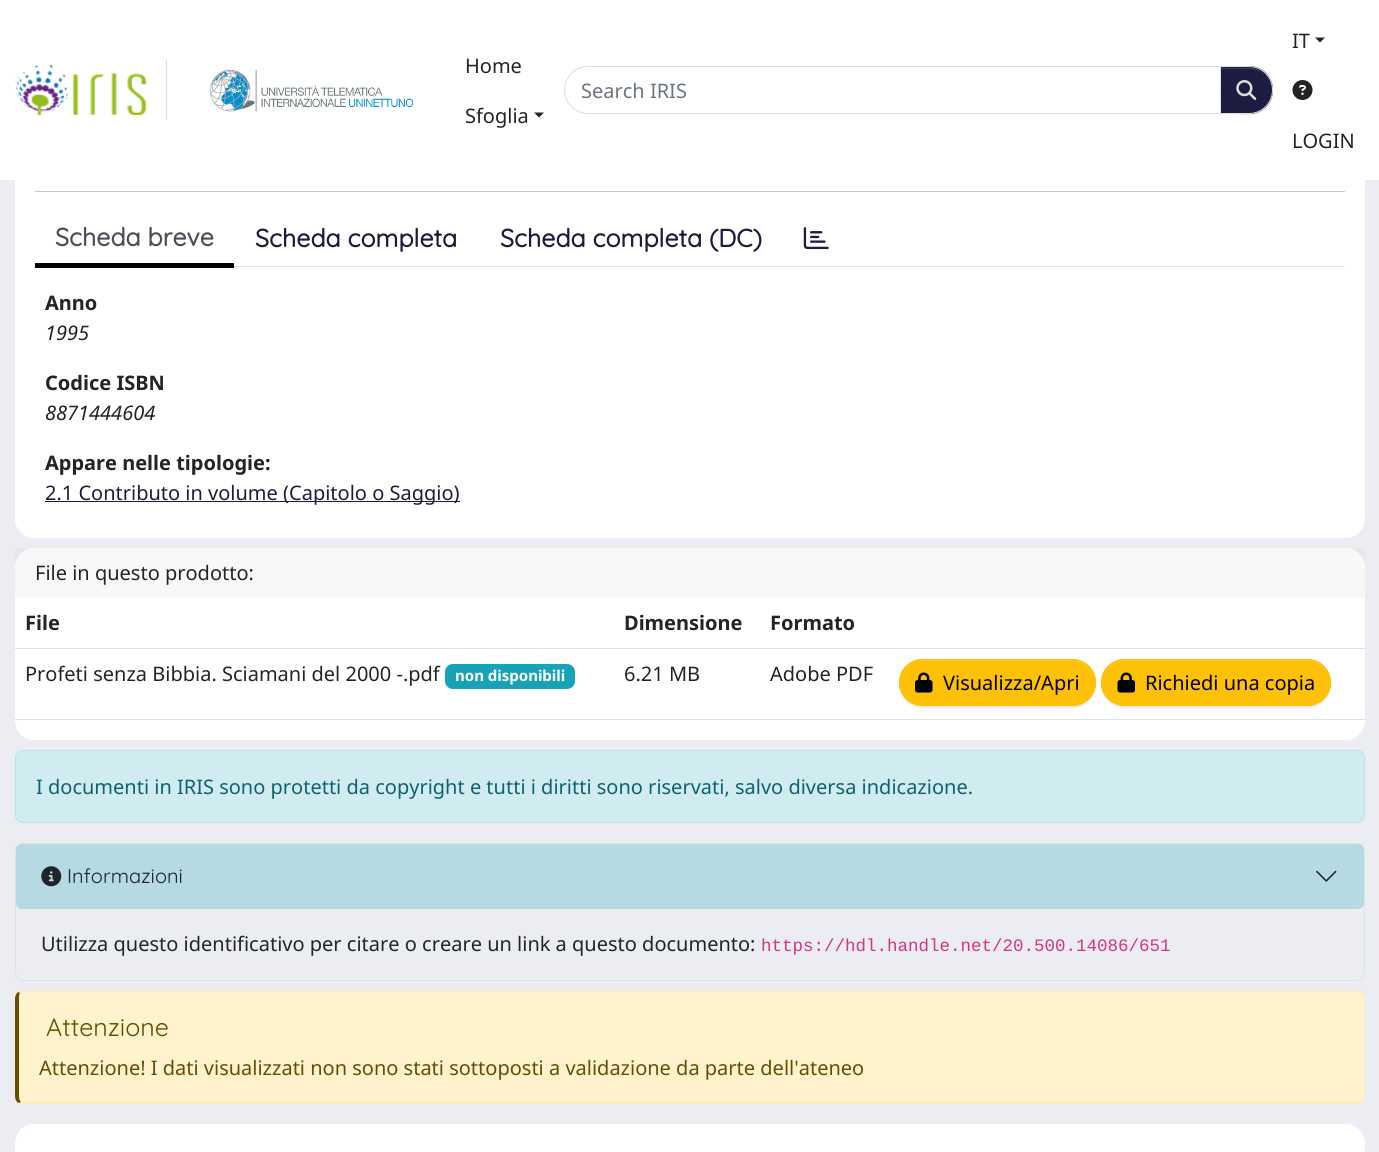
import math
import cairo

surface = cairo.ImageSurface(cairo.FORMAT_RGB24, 1379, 1152)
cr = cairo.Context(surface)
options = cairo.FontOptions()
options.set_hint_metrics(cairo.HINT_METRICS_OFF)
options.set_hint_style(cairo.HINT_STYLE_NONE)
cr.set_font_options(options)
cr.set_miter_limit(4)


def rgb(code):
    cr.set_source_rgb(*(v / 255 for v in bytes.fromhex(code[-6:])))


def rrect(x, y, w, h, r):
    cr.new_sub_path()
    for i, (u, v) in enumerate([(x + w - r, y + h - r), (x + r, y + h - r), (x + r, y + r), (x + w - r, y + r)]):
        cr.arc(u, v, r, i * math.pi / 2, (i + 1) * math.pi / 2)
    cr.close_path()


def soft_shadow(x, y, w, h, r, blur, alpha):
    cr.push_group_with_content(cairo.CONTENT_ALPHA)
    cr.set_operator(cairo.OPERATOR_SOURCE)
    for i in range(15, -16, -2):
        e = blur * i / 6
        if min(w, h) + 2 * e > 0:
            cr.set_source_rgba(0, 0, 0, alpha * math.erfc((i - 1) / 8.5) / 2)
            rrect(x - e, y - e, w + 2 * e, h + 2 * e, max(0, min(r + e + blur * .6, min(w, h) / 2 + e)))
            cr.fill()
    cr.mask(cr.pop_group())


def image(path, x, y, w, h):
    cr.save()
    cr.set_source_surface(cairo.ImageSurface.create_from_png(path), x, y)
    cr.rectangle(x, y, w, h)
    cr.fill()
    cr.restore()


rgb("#ecedf2")
cr.paint()
rgb("#ffffff")
rrect(15, 35, 1350, 503, 19)
cr.fill()
cr.rectangle(0, 0, 1379, 180)
cr.fill()
rgb("#dddddd")
cr.rectangle(166, 60, 1, 60)
cr.fill()
image("img/1.png", 15, 65, 132, 50)
image("img/2.png", 210, 69, 204, 43)
rgb("#232323")
cr.new_path()
cr.move_to(534, 112.5)
cr.line_to(544, 112.5)
cr.line_to(539, 117.5)
cr.close_path()
cr.fill()
cr.new_path()
cr.move_to(588, 66.5)
cr.line_to(1220.5, 66.5)
cr.line_to(1220.5, 113.5)
cr.line_to(588, 113.5)
cr.curve_to(575, 113.5, 564.5, 103, 564.5, 90)
cr.curve_to(564.5, 77, 575, 66.5, 588, 66.5)
cr.close_path()
rgb("#dddddd")
cr.set_line_width(1)
cr.stroke()
rgb("#000000")
soft_shadow(1220, 68, 53, 47, 23.5, 0.5, 0.07)
rgb("#1b1c40")
cr.new_path()
cr.move_to(1220, 66)
cr.line_to(1249, 66)
cr.curve_to(1262.5, 66, 1273, 76.5, 1273, 90)
cr.curve_to(1273, 103.5, 1262.5, 114, 1249, 114)
cr.line_to(1220, 114)
cr.close_path()
cr.fill()
rgb("#3d3e5d")
cr.new_path()
cr.move_to(1221, 69)
cr.line_to(1249, 69)
cr.curve_to(1261, 69, 1271, 79, 1271, 91)
cr.curve_to(1271, 80, 1263, 71, 1253, 68)
cr.line_to(1221, 68)
cr.close_path()
cr.fill()
cr.new_path()
cr.move_to(1220.5, 66.5)
cr.line_to(1249, 66.5)
cr.curve_to(1262, 66.5, 1272.5, 77, 1272.5, 90)
cr.curve_to(1272.5, 103, 1262, 113.5, 1249, 113.5)
cr.line_to(1220.5, 113.5)
cr.close_path()
rgb("#dddddd")
cr.stroke()
image("img/3.png", 1236, 80, 21, 20)
rgb("#232323")
cr.new_path()
cr.move_to(1315, 37.5)
cr.line_to(1325, 37.5)
cr.line_to(1320, 42.5)
cr.close_path()
cr.fill()
image("img/4.png", 1292, 80, 21, 20)
for x, y, w, h, color in [
    (35, 191, 1310, 1, "#c8c9ca"),
    (234, 266, 1111, 1, "#dee2e6"),
    (35, 263, 199, 5, "#000000"),
]:
    rgb(color)
    cr.rectangle(x, y, w, h)
    cr.fill()
image("img/5.png", 803, 227, 26, 23)
rgb("#1b1c40")
cr.rectangle(45, 501, 415, 1)
cr.fill()
rgb("#ffffff")
rrect(15, 548, 1350, 192, 19)
cr.fill()
cr.set_source_rgba(0, 0, 0, 0.03)
cr.rectangle(15, 548, 1350, 50)
cr.fill()
rgb("#dee2e6")
cr.rectangle(15, 648, 1351, 1)
cr.fill()
rgb("#17a2b8")
rrect(445, 664, 130, 25, 8)
cr.fill()
rgb("#dee2e6")
cr.rectangle(15, 719, 1351, 1)
cr.fill()
rgb("#000000")
soft_shadow(899, 660, 197, 48, 24, 0.5, 0.07)
rgb("#ffc107")
rrect(899, 659, 197, 47, 23.5)
cr.fill()
rgb("#ffca2c")
cr.new_path()
cr.move_to(922, 661)
cr.line_to(1072, 661)
cr.curve_to(1085, 661, 1095, 671, 1095, 683)
cr.line_to(1095, 682)
cr.curve_to(1095, 670, 1085, 660, 1072, 660)
cr.line_to(922, 660)
cr.curve_to(910, 660, 900, 670, 900, 682)
cr.line_to(900, 683)
cr.curve_to(900, 671, 910, 661, 922, 661)
cr.close_path()
cr.fill()
rrect(899.5, 659.5, 196, 46, 23)
rgb("#ffc107")
cr.stroke()
image("img/6.png", 915, 672, 18, 21)
rgb("#000000")
soft_shadow(1101, 660, 230, 48, 24, 0.5, 0.07)
rgb("#ffc107")
rrect(1101, 659, 230, 47, 23.5)
cr.fill()
rgb("#ffca2c")
cr.new_path()
cr.move_to(1125, 661)
cr.line_to(1308, 661)
cr.curve_to(1320, 661, 1330, 671, 1330, 683)
cr.line_to(1330, 682)
cr.curve_to(1330, 670, 1320, 660, 1308, 660)
cr.line_to(1126, 660)
cr.curve_to(1117, 660, 1110, 664, 1106, 671)
cr.curve_to(1111, 665, 1118, 661, 1125, 661)
cr.close_path()
cr.fill()
rrect(1101.5, 659.5, 229, 46, 23)
rgb("#ffc107")
cr.stroke()
image("img/7.png", 1117, 672, 18, 21)
rgb("#d1ecf1")
rrect(15.5, 750.5, 1349, 72, 7.5)
cr.fill_preserve()
rgb("#b9e3ea")
cr.stroke()
rrect(15.5, 843.5, 1349, 137, 7.5)
rgb("#dee2e6")
cr.stroke()
cr.set_source_rgba(0.09, 0.635, 0.722, 0.25)
rrect(16, 844, 1348, 65, 6)
cr.fill()
image("img/8.png", 41, 866, 21, 21)
image("img/9.png", 1316, 870, 21, 12)
rgb("#fff3cd")
cr.new_path()
cr.move_to(22, 992)
cr.line_to(1358, 992)
cr.curve_to(1361, 992, 1364, 995, 1364, 999)
cr.line_to(1364, 1096)
cr.curve_to(1364, 1100, 1361, 1102, 1358, 1102)
cr.line_to(22, 1102)
cr.curve_to(20, 1102, 19, 1100, 19, 1096)
cr.line_to(19, 999)
cr.curve_to(19, 995, 20, 992, 22, 992)
cr.close_path()
cr.fill()
rgb("#ffecb5")
cr.new_path()
cr.move_to(22, 992)
cr.line_to(20, 993)
cr.line_to(18, 992)
cr.line_to(20, 991)
cr.line_to(1360, 991)
cr.line_to(1363, 993)
cr.line_to(1362, 994)
cr.curve_to(1361, 993, 1360, 992, 1358, 992)
cr.close_path()
cr.fill()
cr.new_path()
cr.move_to(1365, 1096)
cr.line_to(1365, 999)
cr.curve_to(1365, 997, 1364, 995, 1363, 993)
cr.line_to(1362, 994)
cr.curve_to(1363, 995, 1364, 997, 1364, 999)
cr.line_to(1364, 1096)
cr.curve_to(1364, 1098, 1363, 1100, 1362, 1101)
cr.line_to(1363, 1102)
cr.curve_to(1364, 1100, 1365, 1098, 1365, 1096)
cr.close_path()
cr.fill()
cr.new_path()
cr.move_to(20, 1104)
cr.line_to(18, 1103)
cr.line_to(21, 1102)
cr.line_to(1358, 1102)
cr.curve_to(1359, 1102, 1361, 1102, 1362, 1101)
cr.line_to(1363, 1102)
cr.line_to(1360, 1104)
cr.close_path()
cr.fill()
rgb("#664d03")
cr.new_path()
cr.move_to(15, 999)
cr.line_to(15, 1096)
cr.curve_to(15, 1099, 16, 1101, 18, 1103)
cr.line_to(21, 1102)
cr.curve_to(20, 1101, 19, 1099, 19, 1096)
cr.line_to(19, 999)
cr.curve_to(19, 996, 19, 994, 20, 993)
cr.line_to(18, 992)
cr.curve_to(16, 994, 15, 996, 15, 999)
cr.close_path()
cr.fill()
rgb("#ffffff")
cr.new_path()
cr.move_to(34, 1124)
cr.line_to(1346, 1124)
cr.curve_to(1356.5, 1124, 1365, 1132.5, 1365, 1143)
cr.line_to(1365, 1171)
cr.line_to(15, 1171)
cr.line_to(15, 1143)
cr.curve_to(15, 1132.5, 23.5, 1124, 34, 1124)
cr.close_path()
cr.fill()
cr.select_font_face("Noto Sans")
cr.set_font_size(20)
rgb("#232323")
cr.move_to(465, 73)
cr.show_text("Home")
cr.move_to(465, 123)
cr.show_text("Sfoglia")
rgb("#6c757d")
cr.move_to(581, 98)
cr.show_text("Search IRIS")
rgb("#232323")
cr.move_to(1292, 48)
cr.show_text("IT")
cr.move_to(1292, 148)
cr.show_text("LOGIN")
cr.select_font_face("Quicksand", cairo.FONT_SLANT_NORMAL, cairo.FONT_WEIGHT_BOLD)
cr.set_font_size(25)
rgb("#495057")
cr.move_to(55, 246)
cr.show_text("Scheda breve")
rgb("#1b1c40")
cr.move_to(255, 247)
cr.show_text("Scheda completa")
cr.move_to(500, 247)
cr.show_text("Scheda completa (DC)")
cr.select_font_face("Noto Sans", cairo.FONT_SLANT_NORMAL, cairo.FONT_WEIGHT_BOLD)
cr.set_font_size(20)
rgb("#212529")
cr.move_to(45, 310)
cr.show_text("Anno")
cr.select_font_face("Noto Sans", cairo.FONT_SLANT_ITALIC)
cr.move_to(45, 340)
cr.show_text("1995")
cr.select_font_face("Noto Sans", cairo.FONT_SLANT_NORMAL, cairo.FONT_WEIGHT_BOLD)
cr.move_to(45, 390)
cr.show_text("Codice ISBN")
cr.select_font_face("Noto Sans", cairo.FONT_SLANT_ITALIC)
cr.move_to(45, 420)
cr.show_text("8871444604")
cr.select_font_face("Noto Sans", cairo.FONT_SLANT_NORMAL, cairo.FONT_WEIGHT_BOLD)
cr.move_to(45, 470)
cr.show_text("Appare nelle tipologie:")
cr.select_font_face("Noto Sans")
rgb("#1b1c40")
cr.move_to(45, 500)
cr.show_text("2.1 Contributo in volume (Capitolo o Saggio)")
rgb("#212529")
cr.move_to(35, 580)
cr.show_text("File in questo prodotto:")
cr.select_font_face("Noto Sans", cairo.FONT_SLANT_NORMAL, cairo.FONT_WEIGHT_BOLD)
for x, y, s in [
    (25, 630, "File"),
    (624, 630, "Dimensione"),
    (770, 630, "Formato"),
]:
    cr.move_to(x, y)
    cr.show_text(s)
cr.select_font_face("Noto Sans")
cr.move_to(25, 681)
cr.show_text("Profeti senza Bibbia. Sciamani del 2000 -.pdf")
cr.select_font_face("Noto Sans", cairo.FONT_SLANT_NORMAL, cairo.FONT_WEIGHT_BOLD)
cr.set_font_size(15)
rgb("#ffffff")
cr.move_to(455, 681)
cr.show_text("non disponibili")
cr.select_font_face("Noto Sans")
cr.set_font_size(20)
rgb("#212529")
cr.move_to(624, 681)
cr.show_text("6.21 MB")
cr.move_to(770, 681)
cr.show_text("Adobe PDF")
rgb("#000000")
cr.move_to(943, 690)
cr.show_text("Visualizza/Apri")
cr.move_to(1145, 690)
cr.show_text("Richiedi una copia")
rgb("#0e616e")
cr.move_to(36, 794)
cr.show_text("I documenti in IRIS sono protetti da copyright e tutti i diritti sono riservati, salvo diversa indicazione.")
cr.select_font_face("Quicksand")
rgb("#212529")
cr.move_to(67, 883)
cr.show_text("Informazioni")
cr.select_font_face("Noto Sans")
cr.move_to(41, 951)
cr.show_text("Utilizza questo identificativo per citare o creare un link a questo documento:")
cr.select_font_face("Liberation Mono")
cr.set_font_size(17.5)
rgb("#d63384")
cr.move_to(761, 951)
cr.show_text("https://hdl.handle.net/20.500.14086/651")
cr.select_font_face("Quicksand")
cr.set_font_size(25)
rgb("#664d03")
cr.move_to(46, 1036)
cr.show_text("Attenzione")
cr.select_font_face("Noto Sans")
cr.set_font_size(20)
cr.move_to(39, 1075)
cr.show_text("Attenzione! I dati visualizzati non sono stati sottoposti a validazione da parte dell'ateneo")
surface.write_to_png("page.png")
